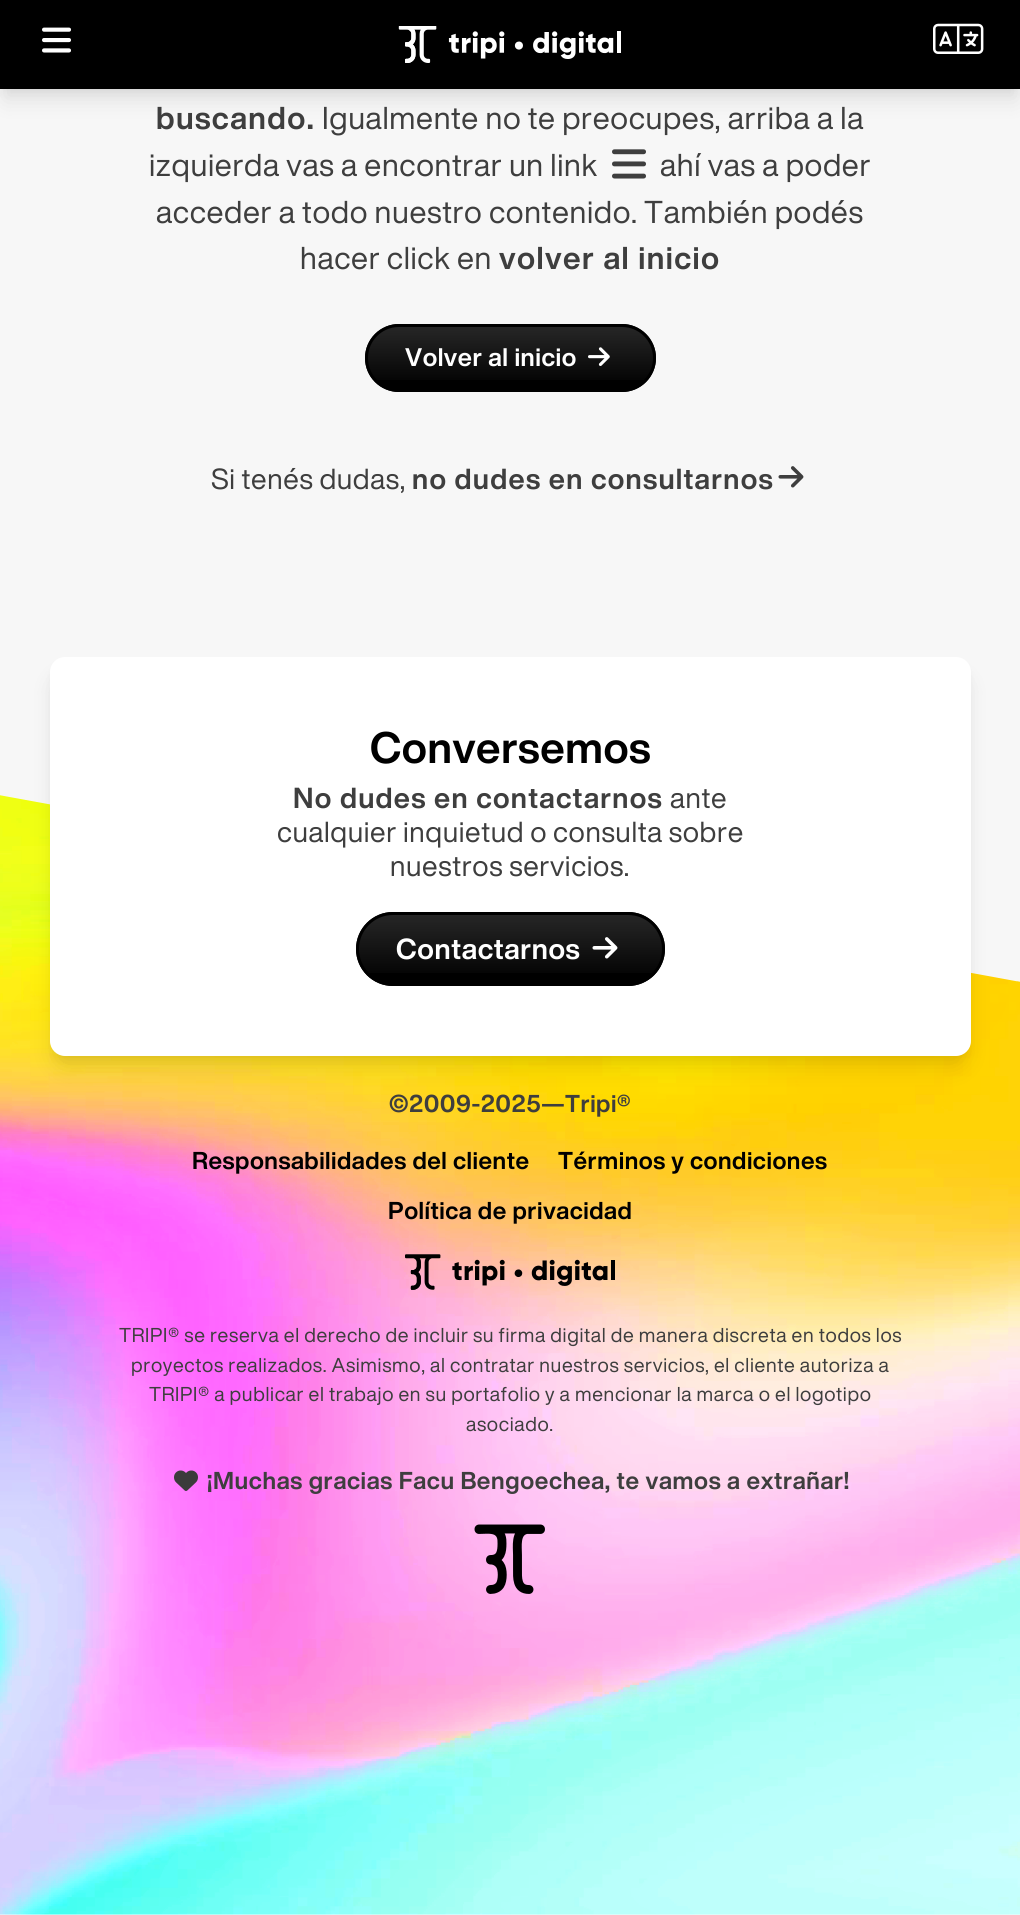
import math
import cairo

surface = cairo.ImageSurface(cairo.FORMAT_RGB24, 1020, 1915)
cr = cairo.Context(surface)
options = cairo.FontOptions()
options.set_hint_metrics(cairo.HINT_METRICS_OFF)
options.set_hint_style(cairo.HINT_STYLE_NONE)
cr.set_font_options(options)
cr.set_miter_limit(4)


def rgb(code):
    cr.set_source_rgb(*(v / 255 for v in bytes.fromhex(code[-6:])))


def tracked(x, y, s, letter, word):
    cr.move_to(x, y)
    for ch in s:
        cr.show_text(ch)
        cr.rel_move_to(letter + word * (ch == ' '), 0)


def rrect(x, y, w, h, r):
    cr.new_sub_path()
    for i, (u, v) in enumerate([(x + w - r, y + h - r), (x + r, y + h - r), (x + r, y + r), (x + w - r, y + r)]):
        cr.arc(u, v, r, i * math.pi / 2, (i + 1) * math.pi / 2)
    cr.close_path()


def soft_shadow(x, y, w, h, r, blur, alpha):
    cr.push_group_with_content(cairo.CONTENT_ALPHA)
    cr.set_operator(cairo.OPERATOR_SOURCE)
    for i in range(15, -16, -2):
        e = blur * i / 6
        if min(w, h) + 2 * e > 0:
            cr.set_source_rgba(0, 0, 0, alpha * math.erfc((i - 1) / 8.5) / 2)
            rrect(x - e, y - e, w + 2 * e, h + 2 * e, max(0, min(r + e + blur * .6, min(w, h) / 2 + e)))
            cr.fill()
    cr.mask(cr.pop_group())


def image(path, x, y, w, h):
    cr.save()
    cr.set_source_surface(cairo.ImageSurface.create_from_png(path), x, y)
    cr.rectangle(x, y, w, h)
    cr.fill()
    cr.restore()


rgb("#f7f7f7")
cr.paint()
rgb("#000000")
soft_shadow(3, 9, 1014, 83, 0, 4.5, 0.05)
soft_shadow(5, 20, 1011, 79, 0, 11, 0.1)
rgb("#000000")
cr.rectangle(0, 0, 1020, 89)
cr.fill()
image("img/1.png", 42, 27, 29, 26)
image("img/2.png", 398, 26, 223, 37)
image("img/3.png", 933, 23, 51, 31)
image("img/4.png", 612, 149, 34, 30)
rrect(365, 324, 291, 68, 34)
cr.fill()
cr.save()
rrect(365, 324, 291, 68, 34)
cr.clip()
gradient = cairo.LinearGradient(510, 327, 510, 389)
gradient.add_color_stop_rgba(0, 1, 1, 1, 0.15)
gradient.add_color_stop_rgba(1, 1, 1, 1, 0)
cr.set_source(gradient)
cr.rectangle(365, 327, 291, 53)
cr.fill()
cr.restore()
rrect(366.5, 325.5, 288, 65, 32.5)
cr.set_line_width(3)
cr.stroke()
image("img/5.png", 588, 347, 22, 19)
image("img/6.png", 778, 466, 26, 22)
image("img/10.png", 0, 795, 1020, 1120)
rgb("#000000")
soft_shadow(53, 666, 915, 393, 12, 4.5, 0.05)
soft_shadow(54, 677, 912, 390, 11, 11, 0.1)
rgb("#ffffff")
rrect(50, 657, 921, 399, 15)
cr.fill()
rgb("#000000")
rrect(356, 912, 309, 74, 37)
cr.fill()
cr.save()
rrect(356, 912, 309, 74, 37)
cr.clip()
gradient = cairo.LinearGradient(510, 915, 510, 983)
gradient.add_color_stop_rgba(0, 1, 1, 1, 0.15)
gradient.add_color_stop_rgba(1, 1, 1, 1, 0)
cr.set_source(gradient)
cr.rectangle(356, 915, 309, 58)
cr.fill()
cr.restore()
rrect(357.5, 913.5, 306, 71, 35.5)
cr.stroke()
image("img/7.png", 592, 937, 26, 22)
image("img/8.png", 405, 1254, 210, 36)
image("img/9.png", 174, 1470, 24, 21)
cr.new_path()
cr.move_to(490.5, 1589.5)
cr.curve_to(494.5, 1589.5, 498, 1588, 500, 1585)
cr.curve_to(503, 1580.5, 503, 1569, 500, 1565)
cr.curve_to(498, 1562, 494.5, 1560, 490.5, 1560)
cr.line_to(490.5, 1559.5)
cr.curve_to(501, 1559.5, 502, 1551.5, 502, 1543.5)
cr.curve_to(502, 1541, 502, 1538.5, 501, 1536)
cr.curve_to(500, 1533.5, 498, 1531.5, 495.5, 1530.5)
cr.curve_to(490.5, 1528.5, 484, 1529.5, 479, 1529.5)
cr.line_to(479, 1529)
cr.line_to(540.5, 1529)
cr.line_to(540.5, 1529.5)
cr.line_to(526.5, 1529.5)
cr.curve_to(515, 1532, 517.5, 1546.5, 517.5, 1555)
cr.line_to(517.5, 1569)
cr.curve_to(517.5, 1577.5, 516.5, 1589.5, 529, 1589.5)
cr.set_line_width(8.9)
cr.set_line_cap(cairo.LINE_CAP_ROUND)
cr.set_line_join(cairo.LINE_JOIN_ROUND)
cr.stroke()
cr.select_font_face("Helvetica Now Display", cairo.FONT_SLANT_NORMAL, cairo.FONT_WEIGHT_BOLD)
cr.set_font_size(31.1)
rgb("#3e3e3e")
tracked(156, 129, "buscando.", 1.4, 0)
cr.select_font_face("Helvetica Now Display")
for x, y, s in [
    (322, 129, "Igualmente no te preocupes, arriba a la"),
    (149, 176, "izquierda vas a encontrar un link"),
    (660, 176, "ahí vas a poder"),
    (156, 223, "acceder a todo nuestro contenido. También podés"),
    (300, 269, "hacer click en"),
]:
    tracked(x, y, s, 0.63, 0)
cr.select_font_face("Helvetica Now Display", cairo.FONT_SLANT_NORMAL, cairo.FONT_WEIGHT_BOLD)
tracked(499, 269, "volver al inicio", 1.4, 0)
cr.set_font_size(25)
rgb("#ffffff")
tracked(405, 366, "Volver al inicio", 0.5, 0)
cr.select_font_face("Helvetica Now Display")
cr.set_font_size(28.5)
rgb("#3e3e3e")
tracked(211, 489, "Si tenés dudas,", 0.63, 0)
cr.select_font_face("Helvetica Now Display", cairo.FONT_SLANT_NORMAL, cairo.FONT_WEIGHT_BOLD)
tracked(412, 489, "no dudes en consultarnos", 1.25, 0)
cr.set_font_size(43.25)
rgb("#000000")
tracked(370, 763, "Conversemos", 0.5, 0)
cr.set_font_size(28.5)
rgb("#3e3e3e")
tracked(293, 808, "No dudes en contactarnos", 1.25, 0)
cr.select_font_face("Helvetica Now Display")
for x, y, s in [
    (670, 808, "ante"),
    (277, 842, "cualquier inquietud o consulta sobre"),
    (390, 876, "nuestros servicios."),
]:
    tracked(x, y, s, 0.63, 0)
cr.select_font_face("Helvetica Now Display", cairo.FONT_SLANT_NORMAL, cairo.FONT_WEIGHT_BOLD)
rgb("#ffffff")
tracked(396, 959, "Contactarnos", 0.63, 0)
cr.set_font_size(24)
rgb("#3e3e3e")
tracked(389, 1112, "©2009-2025—Tripi®", 0.5, 0)
rgb("#000000")
for x, y, s in [
    (192, 1169, "Responsabilidades del cliente"),
    (558, 1169, "Términos y condiciones"),
    (388, 1219, "Política de privacidad"),
]:
    tracked(x, y, s, 0.5, 0)
cr.select_font_face("Helvetica Now Display")
cr.set_font_size(19.75)
rgb("#3e3e3e")
for x, y, s in [
    (119, 1342, "TRIPI® se reserva el derecho de incluir su firma digital de manera discreta en todos los"),
    (131, 1372, "proyectos realizados. Asimismo, al contratar nuestros servicios, el cliente autoriza a"),
    (149, 1401, "TRIPI® a publicar el trabajo en su portafolio y a mencionar la marca o el logotipo"),
    (466, 1431, "asociado."),
]:
    tracked(x, y, s, 0.65, 0)
cr.select_font_face("Helvetica Now Display", cairo.FONT_SLANT_NORMAL, cairo.FONT_WEIGHT_BOLD)
cr.set_font_size(24)
tracked(207, 1489, "¡Muchas gracias Facu Bengoechea, te vamos a extrañar!", 0.63, 0)
surface.write_to_png("page.png")
